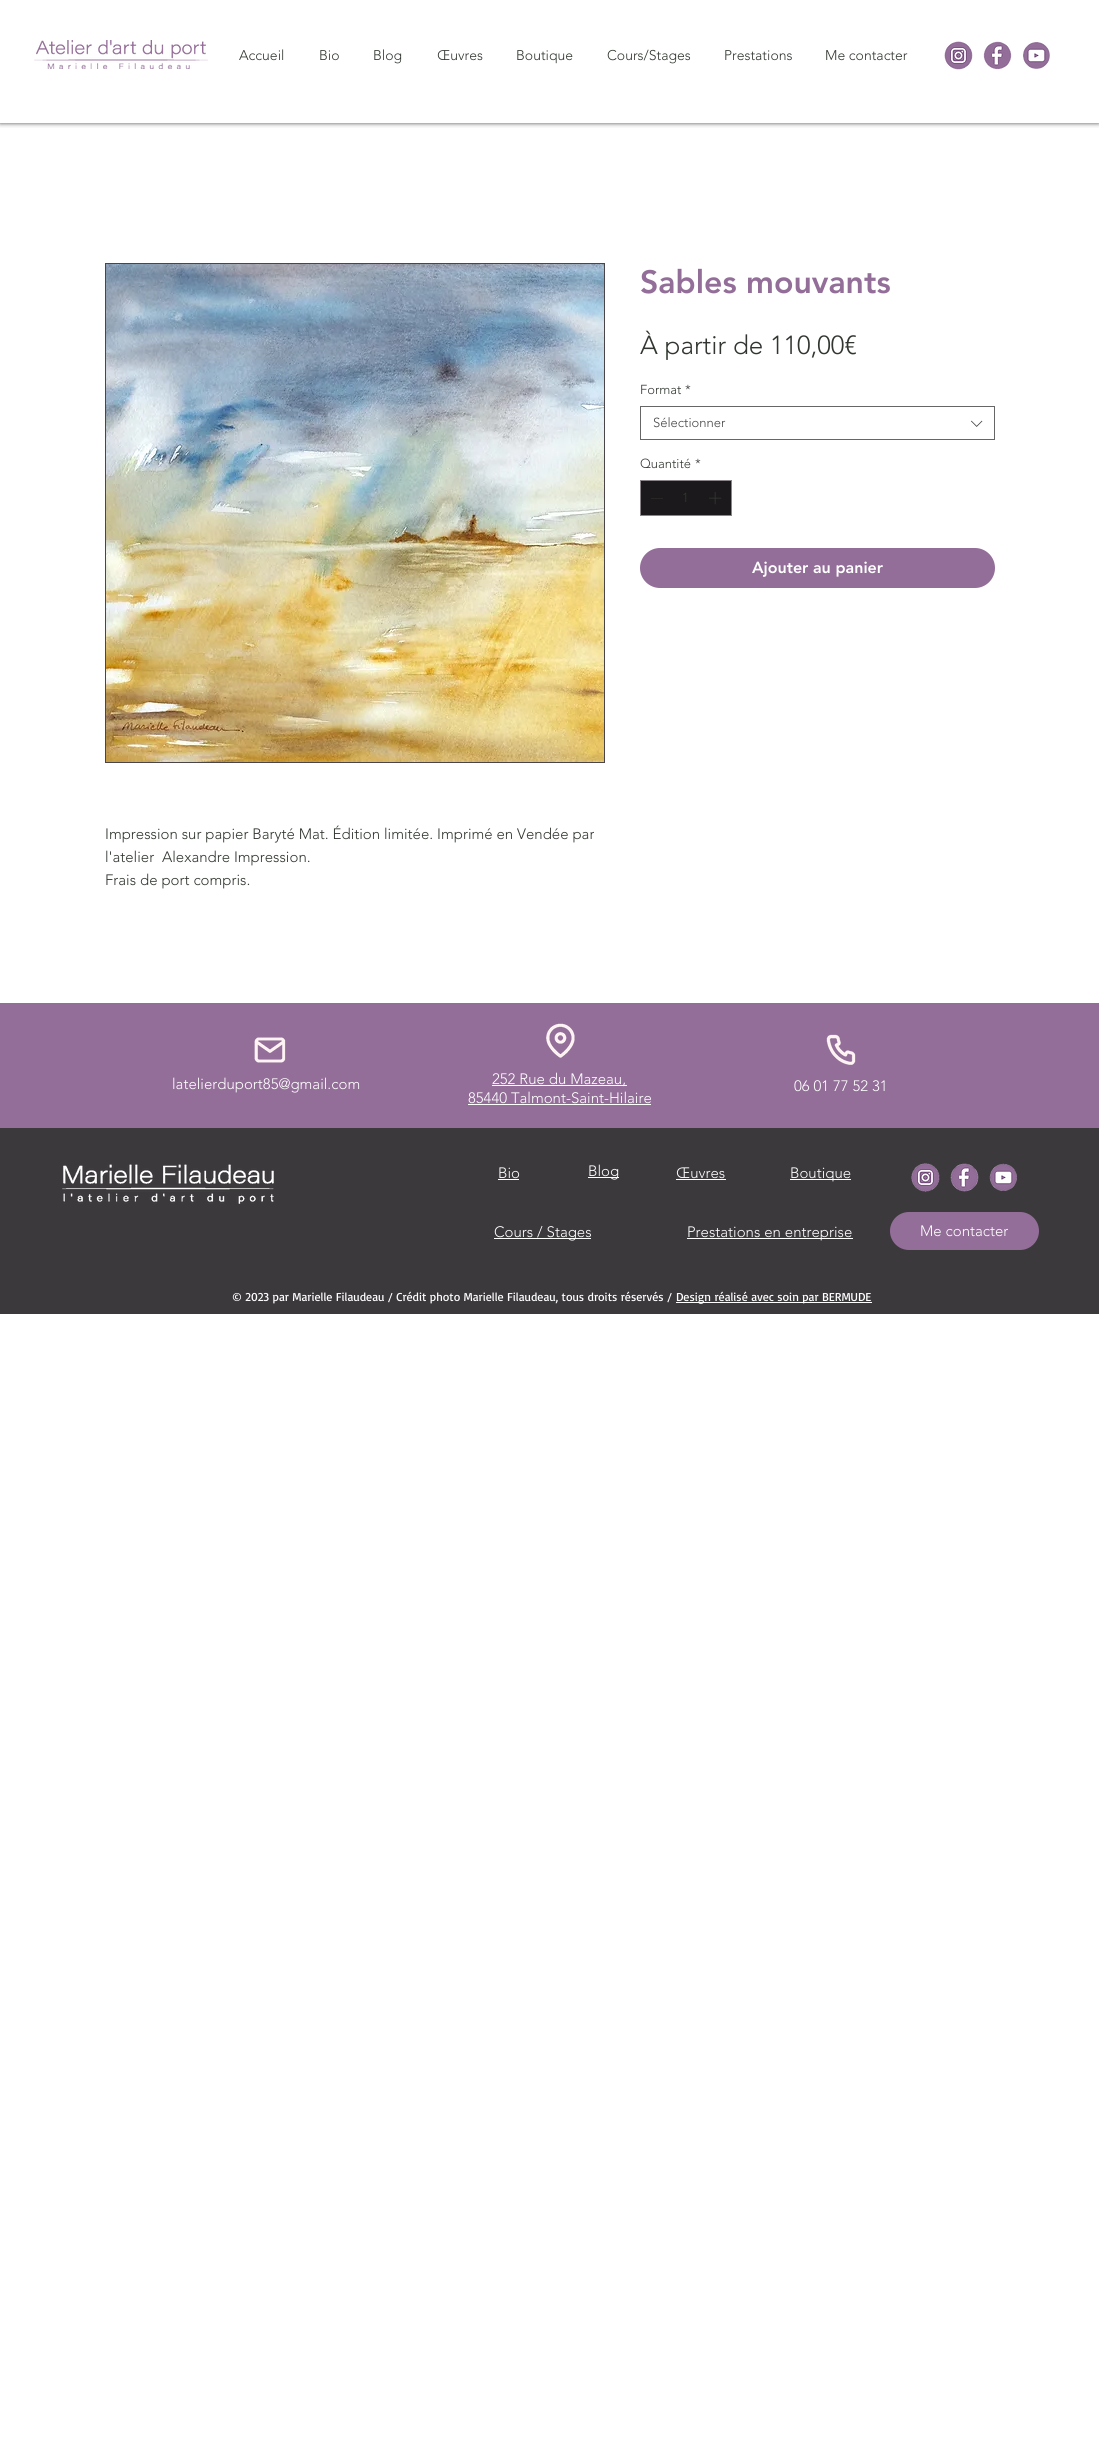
import math
import cairo

surface = cairo.ImageSurface(cairo.FORMAT_RGB24, 1099, 2455)
cr = cairo.Context(surface)
options = cairo.FontOptions()
options.set_hint_metrics(cairo.HINT_METRICS_OFF)
options.set_hint_style(cairo.HINT_STYLE_NONE)
cr.set_font_options(options)
cr.set_miter_limit(4)


def rgb(code):
    cr.set_source_rgb(*(v / 255 for v in bytes.fromhex(code[-6:])))


def rrect(x, y, w, h, r):
    cr.new_sub_path()
    for i, (u, v) in enumerate([(x + w - r, y + h - r), (x + r, y + h - r), (x + r, y + r), (x + w - r, y + r)]):
        cr.arc(u, v, r, i * math.pi / 2, (i + 1) * math.pi / 2)
    cr.close_path()


def soft_shadow(x, y, w, h, r, blur, alpha):
    cr.push_group_with_content(cairo.CONTENT_ALPHA)
    cr.set_operator(cairo.OPERATOR_SOURCE)
    for i in range(15, -16, -2):
        e = blur * i / 6
        if min(w, h) + 2 * e > 0:
            cr.set_source_rgba(0, 0, 0, alpha * math.erfc((i - 1) / 8.5) / 2)
            rrect(x - e, y - e, w + 2 * e, h + 2 * e, max(0, min(r + e + blur * .6, min(w, h) / 2 + e)))
            cr.fill()
    cr.mask(cr.pop_group())


def image(path, x, y, w, h):
    cr.save()
    cr.set_source_surface(cairo.ImageSurface.create_from_png(path), x, y)
    cr.rectangle(x, y, w, h)
    cr.fill()
    cr.restore()


rgb("#ffffff")
cr.paint()
cr.save()
cr.rectangle(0, 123, 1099, 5)
cr.clip()
rgb("#000000")
soft_shadow(0, 0, 1099, 123, 0, 2.5, 0.7)
cr.restore()
image("img/1.png", 34, 40, 174, 29)
image("img/2.png", 944, 41, 29, 29)
image("img/3.png", 983, 41, 29, 29)
image("img/4.png", 1023, 42, 27, 27)
cr.rectangle(640.5, 406.5, 354, 33)
rgb("#666666")
cr.set_line_width(1)
cr.stroke()
image("img/5.png", 971, 420, 12, 7)
rgb("#1c191c")
cr.rectangle(640.5, 480.5, 91, 35)
cr.fill_preserve()
rgb("#898589")
cr.stroke()
rgb("#313730")
cr.set_fill_rule(cairo.FILL_RULE_EVEN_ODD)
cr.new_path()
cr.move_to(663, 498)
cr.line_to(663, 498.5)
cr.line_to(651, 498.5)
cr.line_to(651, 498)
cr.close_path()
cr.fill()
image("img/6.png", 709, 492, 13, 13)
rgb("#936e99")
rrect(640, 548, 355, 40, 20)
cr.fill()
cr.rectangle(105.5, 263.5, 499, 499)
rgb("#494549")
cr.stroke()
image("img/7.png", 106, 264, 498, 498)
rgb("#936e99")
cr.rectangle(0, 1003, 1099, 125)
cr.fill()
image("img/8.png", 254, 1037, 32, 26)
image("img/9.png", 546, 1023, 29, 35)
image("img/10.png", 826, 1034, 30, 31)
for x, y, w, h, color in [
    (492, 1085, 135, 1, "#ffffff"),
    (468, 1104, 183, 1, "#ffffff"),
    (0, 1128, 1099, 186, "#3c393d"),
]:
    rgb(color)
    cr.rectangle(x, y, w, h)
    cr.fill()
image("img/11.png", 62, 1164, 212, 40)
for x, y, w, h, color in [
    (498, 1179, 21, 1, "#ffffff"),
    (588, 1177, 31, 1, "#ffffff"),
    (676, 1179, 50, 1, "#ffffff"),
    (790, 1179, 61, 1, "#ffffff"),
]:
    rgb(color)
    cr.rectangle(x, y, w, h)
    cr.fill()
image("img/12.png", 911, 1163, 29, 29)
image("img/13.png", 950, 1163, 29, 29)
image("img/14.png", 989, 1163, 28, 28)
cr.rectangle(494, 1238, 97, 1)
cr.fill()
cr.rectangle(687, 1238, 166, 1)
cr.fill()
rgb("#936e99")
rrect(890, 1212, 149, 38, 19)
cr.fill()
rgb("#ffffff")
cr.rectangle(676, 1302, 196, 1)
cr.fill()
cr.select_font_face("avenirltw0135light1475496 Light")
cr.set_font_size(14)
rgb("#313730")
for x, y, s in [
    (239, 60, "Accueil"),
    (319, 60, "Bio"),
    (373, 60, "Blog"),
    (437, 60, "Œuvres"),
    (516, 60, "Boutique"),
    (607, 60, "Cours/Stages"),
    (724, 60, "Prestations"),
    (825, 60, "Me contacter"),
]:
    cr.move_to(x, y)
    cr.show_text(s)
cr.select_font_face("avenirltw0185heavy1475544 Black")
cr.set_font_size(32)
rgb("#936e99")
cr.move_to(640, 293)
cr.show_text("Sables mouvants")
cr.select_font_face("avenirltw0135light1475496 Light")
cr.set_font_size(26)
rgb("#313730")
cr.move_to(640, 354)
cr.show_text("À partir de 110,00€")
cr.set_font_size(13)
cr.move_to(640, 394)
cr.show_text("Format")
cr.move_to(685, 394)
cr.show_text("*")
rgb("#444444")
cr.move_to(653, 427)
cr.show_text("Sélectionner")
rgb("#313730")
for x, y, s in [
    (640, 468, "Quantité"),
    (695, 468, "*"),
    (682, 502, "1"),
]:
    cr.move_to(x, y)
    cr.show_text(s)
cr.select_font_face("avenirltw0185heavy1475544 Black")
cr.set_font_size(16)
rgb("#ffffff")
cr.move_to(752, 573)
cr.show_text("Ajouter au panier")
cr.select_font_face("avenirltw0135light1475496 Light")
cr.set_font_size(15)
rgb("#313730")
for x, y, s in [
    (105, 839, "Impression sur papier Baryté Mat. Édition limitée. Imprimé en Vendée par"),
    (105, 862, "l'atelier  Alexandre Impression."),
    (105, 885, "Frais de port compris."),
]:
    cr.move_to(x, y)
    cr.show_text(s)
rgb("#ffffff")
for x, y, s in [
    (172, 1089, "latelierduport85@gmail.com"),
    (492, 1084, "252 Rue du Mazeau,"),
    (468, 1103, "85440 Talmont-Saint-Hilaire"),
    (794, 1091, "06 01 77 52 31"),
    (498, 1178, "Bio"),
    (588, 1176, "Blog"),
    (676, 1178, "Œuvres"),
    (790, 1178, "Boutique"),
    (494, 1237, "Cours / Stages"),
    (687, 1237, "Prestations en entreprise"),
    (920, 1236, "Me contacter"),
]:
    cr.move_to(x, y)
    cr.show_text(s)
cr.select_font_face("Basic")
cr.set_font_size(12)
cr.move_to(232, 1301)
cr.show_text("© 2023 par Marielle Filaudeau / Crédit photo Marielle Filaudeau, tous droits réservés /")
cr.move_to(676, 1301)
cr.show_text("Design réalisé avec soin par BERMUDE")
surface.write_to_png("page.png")
